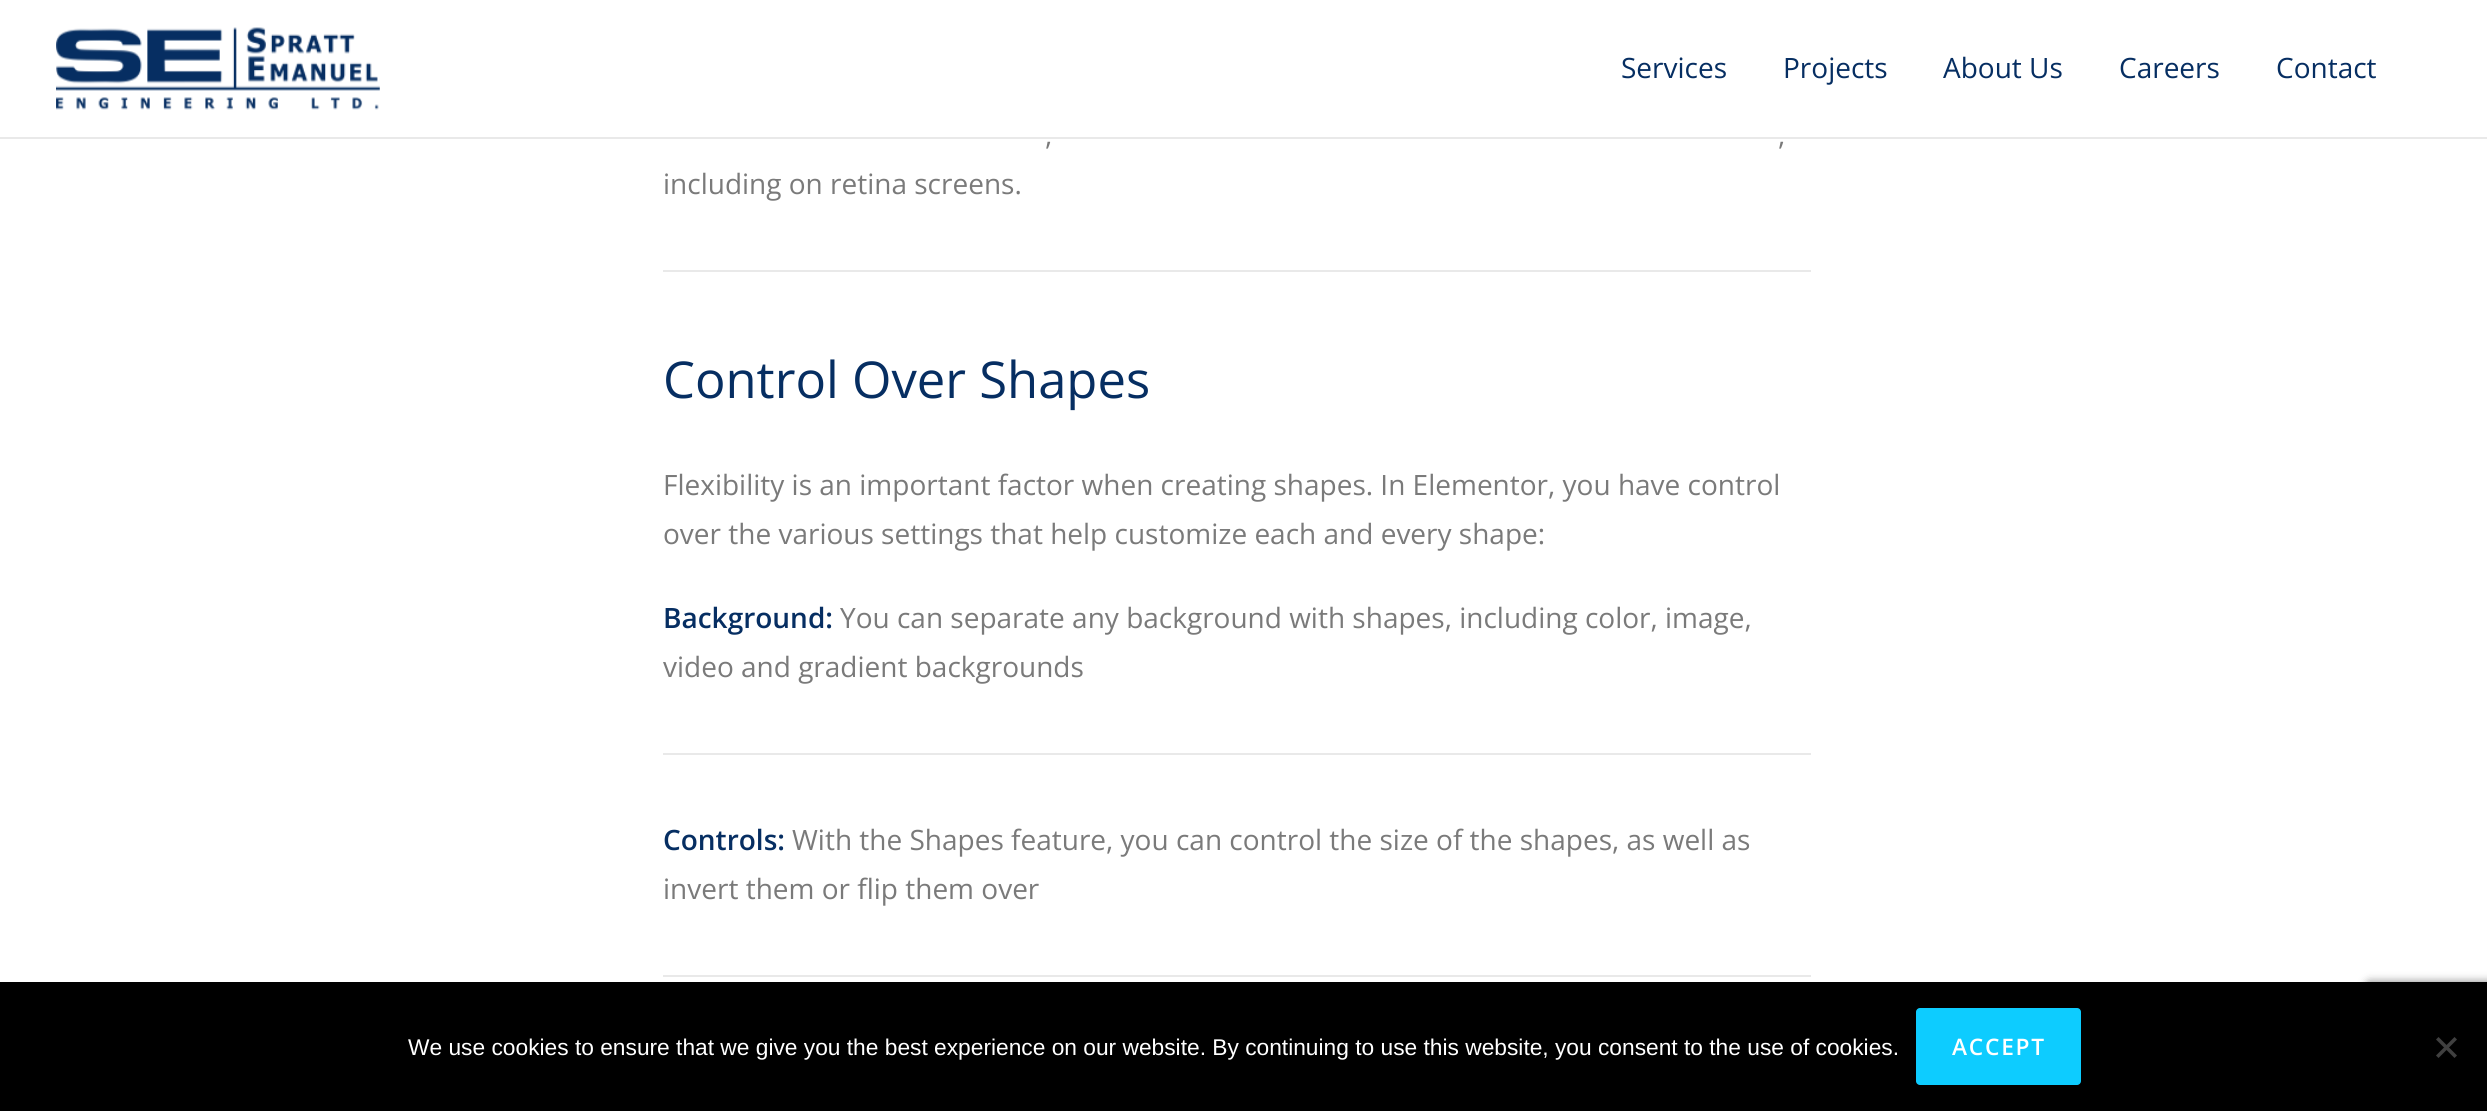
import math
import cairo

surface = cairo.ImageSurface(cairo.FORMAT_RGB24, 2487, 1111)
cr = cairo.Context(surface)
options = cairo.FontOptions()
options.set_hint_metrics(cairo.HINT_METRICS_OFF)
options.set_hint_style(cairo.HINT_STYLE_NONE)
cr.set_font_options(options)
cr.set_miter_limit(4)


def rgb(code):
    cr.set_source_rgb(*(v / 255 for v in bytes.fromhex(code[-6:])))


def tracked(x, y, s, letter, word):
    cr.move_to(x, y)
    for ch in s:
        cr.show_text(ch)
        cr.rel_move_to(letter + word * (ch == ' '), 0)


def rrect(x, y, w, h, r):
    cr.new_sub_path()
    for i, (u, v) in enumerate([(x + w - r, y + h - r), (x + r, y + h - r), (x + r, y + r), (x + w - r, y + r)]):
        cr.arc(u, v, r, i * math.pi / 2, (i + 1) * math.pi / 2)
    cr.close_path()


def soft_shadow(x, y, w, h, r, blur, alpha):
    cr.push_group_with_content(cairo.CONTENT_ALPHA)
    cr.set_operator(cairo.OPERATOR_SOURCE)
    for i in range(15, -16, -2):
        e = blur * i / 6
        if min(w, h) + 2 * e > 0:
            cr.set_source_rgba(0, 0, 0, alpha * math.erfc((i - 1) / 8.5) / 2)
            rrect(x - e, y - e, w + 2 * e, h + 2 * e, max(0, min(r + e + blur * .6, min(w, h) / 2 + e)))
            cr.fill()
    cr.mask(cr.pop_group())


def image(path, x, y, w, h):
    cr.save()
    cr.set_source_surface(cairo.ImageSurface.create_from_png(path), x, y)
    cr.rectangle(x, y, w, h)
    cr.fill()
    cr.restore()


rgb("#ffffff")
cr.paint()
rgb("#e9e9e9")
cr.rectangle(0, 137, 2487, 2)
cr.fill()
image("img/1.png", 56, 27, 324, 83)
for x, y, w, h, color in [
    (663, 270, 1148, 2, "#e9e9e9"),
    (663, 753, 1148, 2, "#e9e9e9"),
    (663, 975, 1148, 2, "#e9e9e9"),
]:
    rgb(color)
    cr.rectangle(x, y, w, h)
    cr.fill()
rgb("#808080")
soft_shadow(2366, 982, 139, 105, 4, 4.5, 1)
rgb("#000000")
cr.rectangle(0, 982, 2487, 129)
cr.fill()
rgb("#0dccff")
rrect(1916, 1008, 165, 77, 4)
cr.fill()
rgb("#404040")
cr.new_path()
cr.move_to(2454.5, 1037)
cr.line_to(2457, 1039.5)
cr.line_to(2438.5, 1058)
cr.line_to(2436, 1055.5)
cr.close_path()
cr.fill()
cr.new_path()
cr.move_to(2436, 1039.5)
cr.line_to(2438.5, 1037)
cr.line_to(2457, 1055.5)
cr.line_to(2454.5, 1058)
cr.close_path()
cr.fill()
cr.select_font_face("Open Sans")
cr.set_font_size(28)
rgb("#062e62")
for x, y, s in [
    (1621, 78, "Services"),
    (1783, 78, "Projects"),
    (1943, 78, "About Us"),
    (2119, 78, "Careers"),
    (2276, 78, "Contact"),
]:
    cr.move_to(x, y)
    cr.show_text(s)
rgb("#7a7a7a")
for x, y, s in [
    (1045, 145, ","),
    (1778, 145, ","),
    (663, 194, "including on retina screens."),
]:
    cr.move_to(x, y)
    cr.show_text(s)
cr.set_font_size(50.75)
rgb("#062e62")
cr.move_to(663, 398)
cr.show_text("Control Over Shapes")
cr.set_font_size(28)
rgb("#7a7a7a")
cr.move_to(663, 495)
cr.show_text("Flexibility is an important factor when creating shapes. In Elementor, you have control")
cr.move_to(663, 544)
cr.show_text("over the various settings that help customize each and every shape:")
cr.select_font_face("Open Sans SemiBold")
rgb("#062e62")
cr.move_to(663, 628)
cr.show_text("Background:")
cr.select_font_face("Open Sans")
rgb("#7a7a7a")
cr.move_to(840, 628)
cr.show_text("You can separate any background with shapes, including color, image,")
cr.move_to(663, 677)
cr.show_text("video and gradient backgrounds")
cr.select_font_face("Open Sans SemiBold")
rgb("#062e62")
cr.move_to(663, 850)
cr.show_text("Controls:")
cr.select_font_face("Open Sans")
rgb("#7a7a7a")
cr.move_to(792, 850)
cr.show_text("With the Shapes feature, you can control the size of the shapes, as well as")
cr.move_to(663, 899)
cr.show_text("invert them or flip them over")
cr.select_font_face("Liberation Sans")
cr.set_font_size(22.75)
rgb("#ffffff")
cr.move_to(408, 1055)
cr.show_text("We use cookies to ensure that we give you the best experience on our website. By continuing to use this website, you consent to the use of cookies.")
cr.select_font_face("Open Sans SemiBold")
tracked(1952, 1055, "ACCEPT", 1.75, 0)
surface.write_to_png("page.png")
